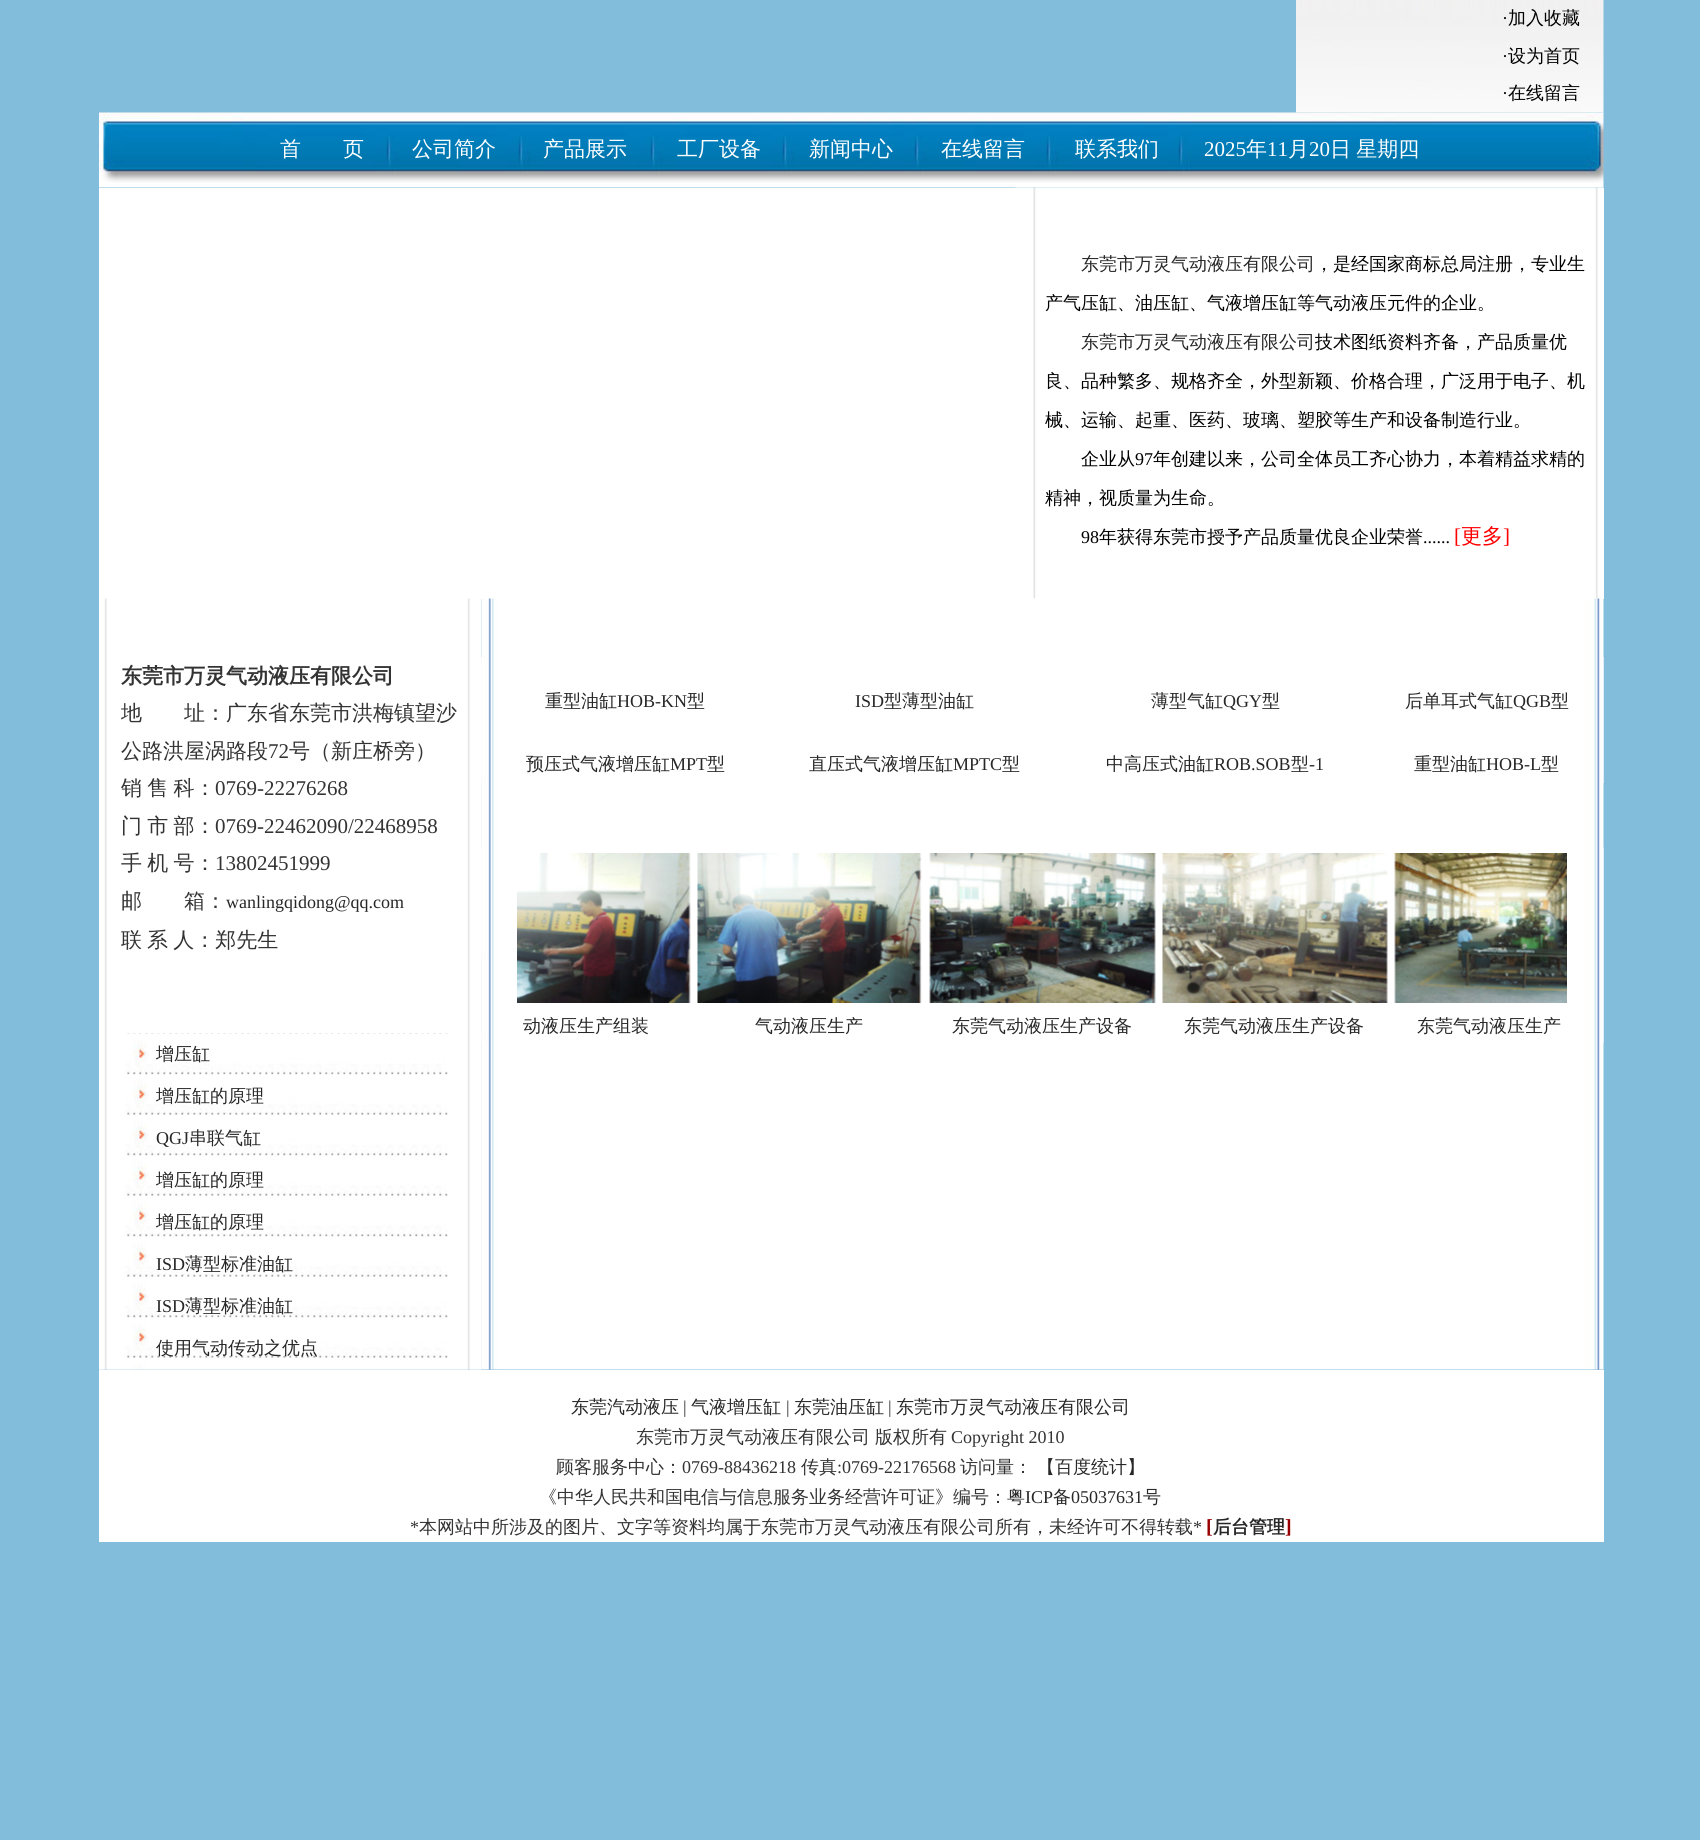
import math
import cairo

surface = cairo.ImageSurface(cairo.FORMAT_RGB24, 1700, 1840)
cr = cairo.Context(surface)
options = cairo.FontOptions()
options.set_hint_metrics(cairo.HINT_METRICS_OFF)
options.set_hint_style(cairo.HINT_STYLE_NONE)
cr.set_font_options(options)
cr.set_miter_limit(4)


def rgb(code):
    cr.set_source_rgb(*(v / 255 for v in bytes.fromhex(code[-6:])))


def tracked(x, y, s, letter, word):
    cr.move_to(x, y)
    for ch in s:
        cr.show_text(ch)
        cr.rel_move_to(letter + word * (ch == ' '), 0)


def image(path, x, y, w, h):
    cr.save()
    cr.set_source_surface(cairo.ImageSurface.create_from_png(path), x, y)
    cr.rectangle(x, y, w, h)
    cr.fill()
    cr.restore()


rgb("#83bddc")
cr.paint()
image("img/1.png", 1296, 0, 308, 113)
image("img/2.png", 99, 112, 1505, 76)
rgb("#ffffff")
cr.rectangle(99, 188, 1505, 411)
cr.fill()
image("img/3.png", 1015, 187, 589, 412)
image("img/4.png", 99, 598, 383, 772)
image("img/5.png", 481, 657, 1, 302)
image("img/6.png", 99, 1033, 383, 337)
image("img/7.png", 481, 598, 1123, 772)
image("img/8.png", 481, 657, 1123, 126)
image("img/9.png", 481, 847, 1123, 196)
image("img/10.png", 517, 853, 174, 150)
image("img/11.png", 697, 853, 225, 150)
image("img/12.png", 929, 853, 227, 150)
image("img/13.png", 1162, 853, 226, 150)
image("img/14.png", 1394, 853, 173, 150)
cr.rectangle(99, 1370, 1505, 172)
cr.fill()
cr.select_font_face("Liberation Serif")
cr.set_font_size(18)
rgb("#000000")
cr.move_to(1502, 24)
cr.show_text("·")
cr.select_font_face("WenQuanYi Zen Hei Medium")
cr.move_to(1508, 24)
cr.show_text("加入收藏")
cr.select_font_face("Liberation Serif")
cr.move_to(1502, 62)
cr.show_text("·")
cr.select_font_face("WenQuanYi Zen Hei Medium")
cr.move_to(1508, 62)
cr.show_text("设为首页")
cr.select_font_face("Liberation Serif")
cr.move_to(1502, 99)
cr.show_text("·")
cr.select_font_face("WenQuanYi Zen Hei Medium")
cr.move_to(1508, 99)
cr.show_text("在线留言")
cr.set_font_size(21)
rgb("#ffffff")
for x, y, s in [
    (280, 156, "首　　页"),
    (412, 156, "公司简介"),
    (543, 156, "产品展示"),
    (677, 156, "工厂设备"),
    (809, 156, "新闻中心"),
    (941, 156, "在线留言"),
    (1075, 156, "联系我们"),
]:
    cr.move_to(x, y)
    cr.show_text(s)
cr.select_font_face("Liberation Serif")
cr.move_to(1204, 156)
cr.show_text("2025")
cr.select_font_face("WenQuanYi Zen Hei Medium")
cr.move_to(1246, 156)
cr.show_text("年")
cr.select_font_face("Liberation Serif")
cr.move_to(1267, 156)
cr.show_text("11")
cr.select_font_face("WenQuanYi Zen Hei Medium")
cr.move_to(1288, 156)
cr.show_text("月")
cr.select_font_face("Liberation Serif")
cr.move_to(1309, 156)
cr.show_text("20")
cr.select_font_face("WenQuanYi Zen Hei Medium")
tracked(1330, 156, "日 星期四", 0, -1)
cr.set_font_size(18)
rgb("#272727")
cr.move_to(1081, 270)
cr.show_text("东莞市万灵气动液压有限公司")
rgb("#000000")
cr.move_to(1315, 270)
cr.show_text("，是经国家商标总局注册，专业生")
cr.move_to(1045, 309)
cr.show_text("产气压缸、油压缸、气液增压缸等气动液压元件的企业。")
rgb("#272727")
cr.move_to(1081, 348)
cr.show_text("东莞市万灵气动液压有限公司")
rgb("#000000")
for x, y, s in [
    (1315, 348, "技术图纸资料齐备，产品质量优"),
    (1045, 387, "良、品种繁多、规格齐全，外型新颖、价格合理，广泛用于电子、机"),
    (1045, 426, "械、运输、起重、医药、玻璃、塑胶等生产和设备制造行业。"),
    (1081, 465, "企业从"),
]:
    cr.move_to(x, y)
    cr.show_text(s)
cr.select_font_face("Liberation Serif")
cr.move_to(1135, 465)
cr.show_text("97")
cr.select_font_face("WenQuanYi Zen Hei Medium")
cr.move_to(1153, 465)
cr.show_text("年创建以来，公司全体员工齐心协力，本着精益求精的")
cr.move_to(1045, 504)
cr.show_text("精神，视质量为生命。")
cr.select_font_face("Liberation Serif")
cr.move_to(1081, 543)
cr.show_text("98")
cr.select_font_face("WenQuanYi Zen Hei Medium")
cr.move_to(1099, 543)
cr.show_text("年获得东莞市授予产品质量优良企业荣誉")
cr.select_font_face("Liberation Serif")
cr.move_to(1423, 543)
cr.show_text("......")
cr.set_font_size(21)
rgb("#ff0000")
cr.move_to(1454, 543)
cr.show_text("[")
cr.select_font_face("WenQuanYi Zen Hei Medium")
cr.move_to(1461, 543)
cr.show_text("更多")
cr.select_font_face("Liberation Serif")
cr.move_to(1503, 543)
cr.show_text("]")
cr.select_font_face("WenQuanYi Zen Hei", cairo.FONT_SLANT_NORMAL, cairo.FONT_WEIGHT_BOLD)
rgb("#333333")
cr.move_to(121, 683)
cr.show_text("东莞市万灵气动液压有限公司")
cr.select_font_face("WenQuanYi Zen Hei Medium")
cr.move_to(121, 720)
cr.show_text("地　　址：广东省东莞市洪梅镇望沙")
cr.move_to(121, 758)
cr.show_text("公路洪屋涡路段")
cr.select_font_face("Liberation Serif")
cr.move_to(268, 758)
cr.show_text("72")
cr.select_font_face("WenQuanYi Zen Hei Medium")
cr.move_to(289, 758)
cr.show_text("号（新庄桥旁）")
tracked(121, 795, "销 售 科：", 0, -1)
cr.select_font_face("Liberation Serif")
cr.move_to(215, 795)
cr.show_text("0769-22276268")
cr.select_font_face("WenQuanYi Zen Hei Medium")
tracked(121, 833, "门 市 部：", 0, -1)
cr.select_font_face("Liberation Serif")
cr.move_to(215, 833)
cr.show_text("0769-22462090/22468958")
cr.select_font_face("WenQuanYi Zen Hei Medium")
tracked(121, 870, "手 机 号：", 0, -1)
cr.select_font_face("Liberation Serif")
cr.move_to(215, 870)
cr.show_text("13802451999")
cr.select_font_face("WenQuanYi Zen Hei Medium")
cr.move_to(121, 908)
cr.show_text("邮　　箱：")
cr.select_font_face("Liberation Serif")
cr.set_font_size(18)
rgb("#272727")
cr.move_to(226, 908)
cr.show_text("wanlingqidong@qq.com")
cr.select_font_face("WenQuanYi Zen Hei Medium")
cr.set_font_size(21)
rgb("#333333")
cr.move_to(121, 947)
cr.show_text("联")
tracked(147, 947, "系 人：郑先生", 0, -1)
cr.set_font_size(18)
rgb("#272727")
cr.move_to(156, 1060)
cr.show_text("增压缸")
cr.move_to(156, 1102)
cr.show_text("增压缸的原理")
cr.select_font_face("Liberation Serif")
cr.move_to(156, 1144)
cr.show_text("QGJ")
cr.select_font_face("WenQuanYi Zen Hei Medium")
for x, y, s in [
    (189, 1144, "串联气缸"),
    (156, 1186, "增压缸的原理"),
    (156, 1228, "增压缸的原理"),
]:
    cr.move_to(x, y)
    cr.show_text(s)
cr.select_font_face("Liberation Serif")
cr.move_to(156, 1270)
cr.show_text("ISD")
cr.select_font_face("WenQuanYi Zen Hei Medium")
cr.move_to(185, 1270)
cr.show_text("薄型标准油缸")
cr.select_font_face("Liberation Serif")
cr.move_to(156, 1312)
cr.show_text("ISD")
cr.select_font_face("WenQuanYi Zen Hei Medium")
for x, y, s in [
    (185, 1312, "薄型标准油缸"),
    (156, 1354, "使用气动传动之优点"),
    (545, 707, "重型油缸"),
]:
    cr.move_to(x, y)
    cr.show_text(s)
cr.select_font_face("Liberation Serif")
cr.move_to(617, 707)
cr.show_text("HOB-KN")
cr.select_font_face("WenQuanYi Zen Hei Medium")
cr.move_to(687, 707)
cr.show_text("型")
cr.select_font_face("Liberation Serif")
cr.move_to(855, 707)
cr.show_text("ISD")
cr.select_font_face("WenQuanYi Zen Hei Medium")
cr.move_to(884, 707)
cr.show_text("型薄型油缸")
cr.move_to(1151, 707)
cr.show_text("薄型气缸")
cr.select_font_face("Liberation Serif")
cr.move_to(1223, 707)
cr.show_text("QGY")
cr.select_font_face("WenQuanYi Zen Hei Medium")
cr.move_to(1262, 707)
cr.show_text("型")
cr.move_to(1405, 707)
cr.show_text("后单耳式气缸")
cr.select_font_face("Liberation Serif")
cr.move_to(1513, 707)
cr.show_text("QGB")
cr.select_font_face("WenQuanYi Zen Hei Medium")
cr.move_to(1551, 707)
cr.show_text("型")
cr.move_to(526, 770)
cr.show_text("预压式气液增压缸")
cr.select_font_face("Liberation Serif")
cr.move_to(670, 770)
cr.show_text("MPT")
cr.select_font_face("WenQuanYi Zen Hei Medium")
cr.move_to(707, 770)
cr.show_text("型")
cr.move_to(809, 770)
cr.show_text("直压式气液增压缸")
cr.select_font_face("Liberation Serif")
cr.move_to(953, 770)
cr.show_text("MPTC")
cr.select_font_face("WenQuanYi Zen Hei Medium")
cr.move_to(1002, 770)
cr.show_text("型")
cr.move_to(1106, 770)
cr.show_text("中高压式油缸")
cr.select_font_face("Liberation Serif")
cr.move_to(1214, 770)
cr.show_text("ROB.SOB")
cr.select_font_face("WenQuanYi Zen Hei Medium")
cr.move_to(1291, 770)
cr.show_text("型")
cr.select_font_face("Liberation Serif")
cr.move_to(1309, 770)
cr.show_text("-1")
cr.select_font_face("WenQuanYi Zen Hei Medium")
cr.move_to(1414, 770)
cr.show_text("重型油缸")
cr.select_font_face("Liberation Serif")
cr.move_to(1486, 770)
cr.show_text("HOB-L")
cr.select_font_face("WenQuanYi Zen Hei Medium")
for x, y, s in [
    (1541, 770, "型"),
    (523, 1032, "动液压生产组装"),
    (755, 1032, "气动液压生产"),
    (952, 1032, "东莞气动液压生产设备"),
    (1184, 1032, "东莞气动液压生产设备"),
    (1417, 1032, "东莞气动液压生产"),
    (571, 1413, "东莞汽动液压"),
]:
    cr.move_to(x, y)
    cr.show_text(s)
cr.select_font_face("Liberation Serif")
rgb("#333333")
cr.move_to(683, 1413)
cr.show_text("|")
cr.select_font_face("WenQuanYi Zen Hei Medium")
rgb("#272727")
cr.move_to(691, 1413)
cr.show_text("气液增压缸")
cr.select_font_face("Liberation Serif")
rgb("#333333")
cr.move_to(786, 1413)
cr.show_text("|")
cr.select_font_face("WenQuanYi Zen Hei Medium")
rgb("#272727")
cr.move_to(794, 1413)
cr.show_text("东莞油压缸")
cr.select_font_face("Liberation Serif")
rgb("#333333")
cr.move_to(888, 1413)
cr.show_text("|")
cr.select_font_face("WenQuanYi Zen Hei Medium")
rgb("#272727")
cr.move_to(896, 1413)
cr.show_text("东莞市万灵气动液压有限公司")
rgb("#333333")
cr.move_to(636, 1443)
cr.show_text("东莞市万灵气动液压有限公司")
cr.move_to(875, 1443)
cr.show_text("版权所有")
cr.select_font_face("Liberation Serif")
cr.move_to(951, 1443)
cr.show_text("Copyright 2010")
cr.select_font_face("WenQuanYi Zen Hei Medium")
cr.move_to(556, 1473)
cr.show_text("顾客服务中心：")
cr.select_font_face("Liberation Serif")
cr.move_to(682, 1473)
cr.show_text("0769-88436218")
cr.select_font_face("WenQuanYi Zen Hei Medium")
cr.move_to(801, 1473)
cr.show_text("传真")
cr.select_font_face("Liberation Serif")
cr.move_to(837, 1473)
cr.show_text(":0769-22176568")
cr.select_font_face("WenQuanYi Zen Hei Medium")
cr.move_to(960, 1473)
cr.show_text("访问量：")
rgb("#272727")
cr.move_to(1037, 1473)
cr.show_text("【百度统计】")
rgb("#333333")
cr.move_to(539, 1503)
cr.show_text("《中华人民共和国电信与信息服务业务经营许可证》编号：")
rgb("#272727")
cr.move_to(1007, 1503)
cr.show_text("粤")
cr.select_font_face("Liberation Serif")
cr.move_to(1025, 1503)
cr.show_text("ICP")
cr.select_font_face("WenQuanYi Zen Hei Medium")
cr.move_to(1053, 1503)
cr.show_text("备")
cr.select_font_face("Liberation Serif")
cr.move_to(1071, 1503)
cr.show_text("05037631")
cr.select_font_face("WenQuanYi Zen Hei Medium")
cr.move_to(1143, 1503)
cr.show_text("号")
cr.select_font_face("Liberation Serif")
rgb("#333333")
cr.move_to(410, 1533)
cr.show_text("*")
cr.select_font_face("WenQuanYi Zen Hei Medium")
cr.move_to(419, 1533)
cr.show_text("本网站中所涉及的图片、文字等资料均属于东莞市万灵气动液压有限公司所有，未经许可不得转载")
cr.select_font_face("Liberation Serif")
cr.move_to(1193, 1533)
cr.show_text("*")
cr.select_font_face("Liberation Serif", cairo.FONT_SLANT_NORMAL, cairo.FONT_WEIGHT_BOLD)
cr.set_font_size(20)
rgb("#990000")
cr.move_to(1206, 1533)
cr.show_text("[")
cr.select_font_face("WenQuanYi Zen Hei", cairo.FONT_SLANT_NORMAL, cairo.FONT_WEIGHT_BOLD)
cr.set_font_size(18)
rgb("#272727")
cr.move_to(1213, 1533)
cr.show_text("后台管理")
cr.select_font_face("Liberation Serif", cairo.FONT_SLANT_NORMAL, cairo.FONT_WEIGHT_BOLD)
cr.set_font_size(20)
rgb("#990000")
cr.move_to(1285, 1533)
cr.show_text("]")
surface.write_to_png("page.png")
